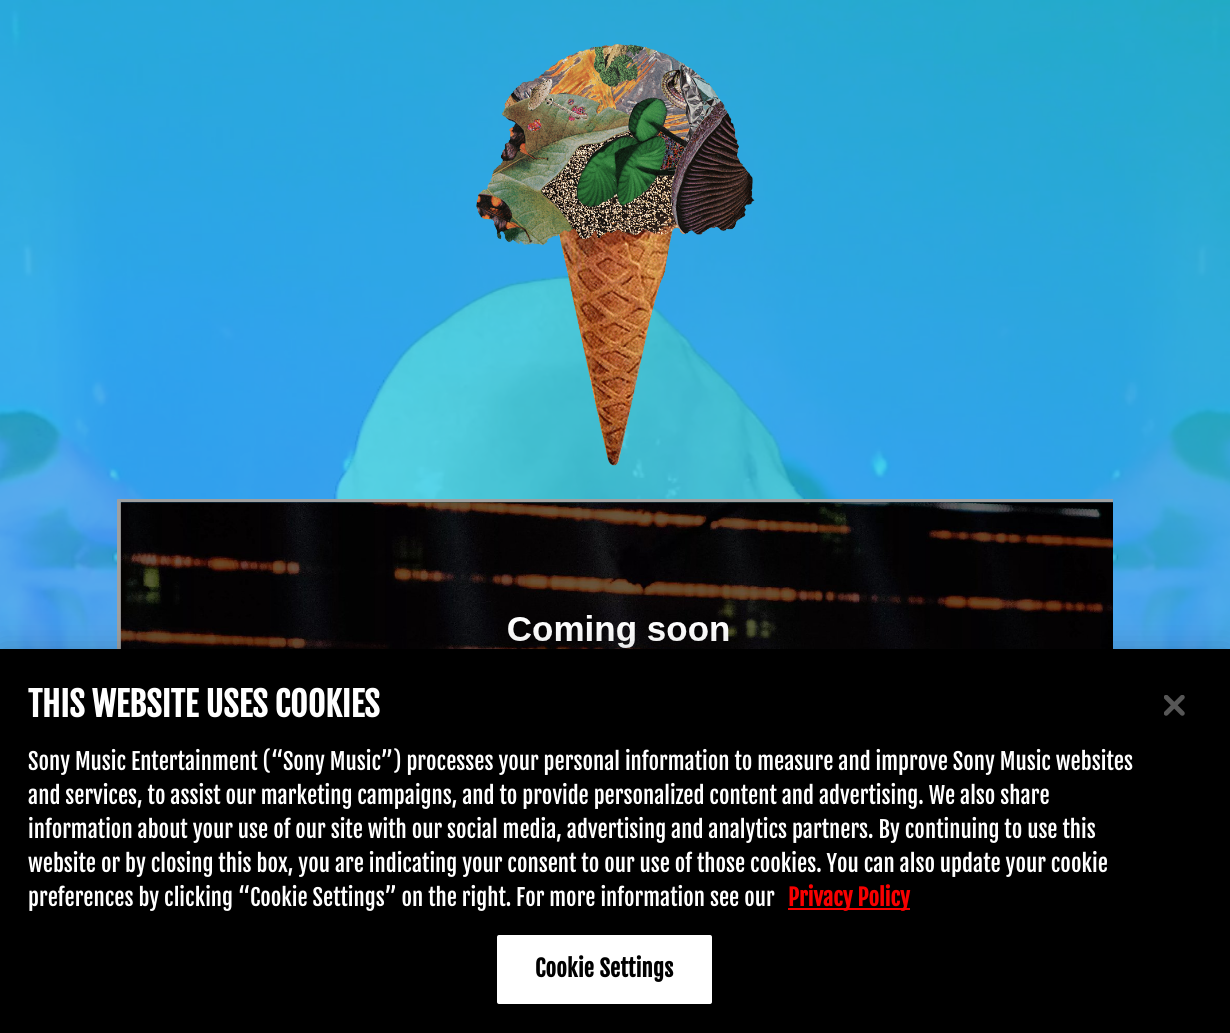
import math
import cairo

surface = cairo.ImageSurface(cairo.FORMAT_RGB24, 1230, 1033)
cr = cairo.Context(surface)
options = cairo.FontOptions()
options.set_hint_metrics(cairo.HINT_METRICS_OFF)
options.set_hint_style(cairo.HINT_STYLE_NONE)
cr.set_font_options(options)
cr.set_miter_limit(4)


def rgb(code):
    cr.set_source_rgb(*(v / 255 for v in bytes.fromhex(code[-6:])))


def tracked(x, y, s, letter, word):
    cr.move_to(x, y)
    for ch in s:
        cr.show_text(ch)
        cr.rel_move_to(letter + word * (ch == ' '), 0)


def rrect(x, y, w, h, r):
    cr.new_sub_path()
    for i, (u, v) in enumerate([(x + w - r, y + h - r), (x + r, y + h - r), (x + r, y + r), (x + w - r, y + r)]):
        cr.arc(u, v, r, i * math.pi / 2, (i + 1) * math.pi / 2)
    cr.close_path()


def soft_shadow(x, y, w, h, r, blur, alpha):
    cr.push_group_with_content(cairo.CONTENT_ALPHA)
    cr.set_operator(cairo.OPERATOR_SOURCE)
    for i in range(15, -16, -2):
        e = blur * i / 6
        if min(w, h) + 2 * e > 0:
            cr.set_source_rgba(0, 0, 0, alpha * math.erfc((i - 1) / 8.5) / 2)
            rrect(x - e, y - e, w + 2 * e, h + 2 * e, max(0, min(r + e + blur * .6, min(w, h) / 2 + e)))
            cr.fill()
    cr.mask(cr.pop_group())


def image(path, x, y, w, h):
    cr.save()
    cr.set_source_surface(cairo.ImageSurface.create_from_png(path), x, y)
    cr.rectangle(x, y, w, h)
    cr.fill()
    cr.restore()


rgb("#ffffff")
cr.paint()
image("img/1.png", 0, 0, 1230, 649)
image("img/2.png", 476, 43, 279, 423)
cr.save()
cr.rectangle(117, 499, 996, 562)
cr.clip()
rgb("#9f9f9f")
cr.new_path()
cr.move_to(117, 499)
cr.line_to(1120, 499)
cr.line_to(1116, 502)
cr.line_to(121, 502)
cr.close_path()
cr.fill()
cr.restore()
rgb("#9f9f9f")
cr.new_path()
cr.move_to(117, 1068)
cr.line_to(117, 499)
cr.line_to(121, 502)
cr.line_to(121, 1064)
cr.close_path()
cr.fill()
image("img/3.png", 120, 502, 993, 147)
rgb("#000000")
soft_shadow(0, 649, 1230, 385, 0, 16, 0.2)
rgb("#000000")
cr.rectangle(0, 649, 1230, 384)
cr.fill()
rgb("#f90000")
cr.rectangle(788, 908, 122, 2)
cr.fill()
rgb("#ffffff")
rrect(496, 934, 217, 71, 3)
cr.fill_preserve()
rgb("#000000")
cr.stroke()
image("img/4.png", 1164, 695, 21, 21)
cr.select_font_face("Fjalla One", cairo.FONT_SLANT_NORMAL, cairo.FONT_WEIGHT_BOLD)
cr.set_font_size(33.6)
rgb("#ffffff")
cr.move_to(28, 717)
cr.show_text("THIS WEBSITE USES COOKIES")
cr.select_font_face("Fjalla One")
cr.set_font_size(22.75)
for x, y, s in [
    (28, 770, "Sony Music Entertainment (“Sony Music”) processes your personal information to measure and improve Sony Music websites"),
    (28, 804, "and services, to assist our marketing campaigns, and to provide personalized content and advertising. We also share"),
    (28, 838, "information about your use of our site with our social media, advertising and analytics partners. By continuing to use this"),
    (28, 872, "website or by closing this box, you are indicating your consent to our use of those cookies. You can also update your cookie"),
    (28, 906, "preferences by clicking “Cookie Settings” on the right. For more information see our"),
]:
    cr.move_to(x, y)
    cr.show_text(s)
cr.select_font_face("Fjalla One", cairo.FONT_SLANT_NORMAL, cairo.FONT_WEIGHT_BOLD)
rgb("#f90000")
cr.move_to(788, 906)
cr.show_text("Privacy Policy")
rgb("#000000")
tracked(535, 977, "Cookie Settings", 0.25, 0)
surface.write_to_png("page.png")
